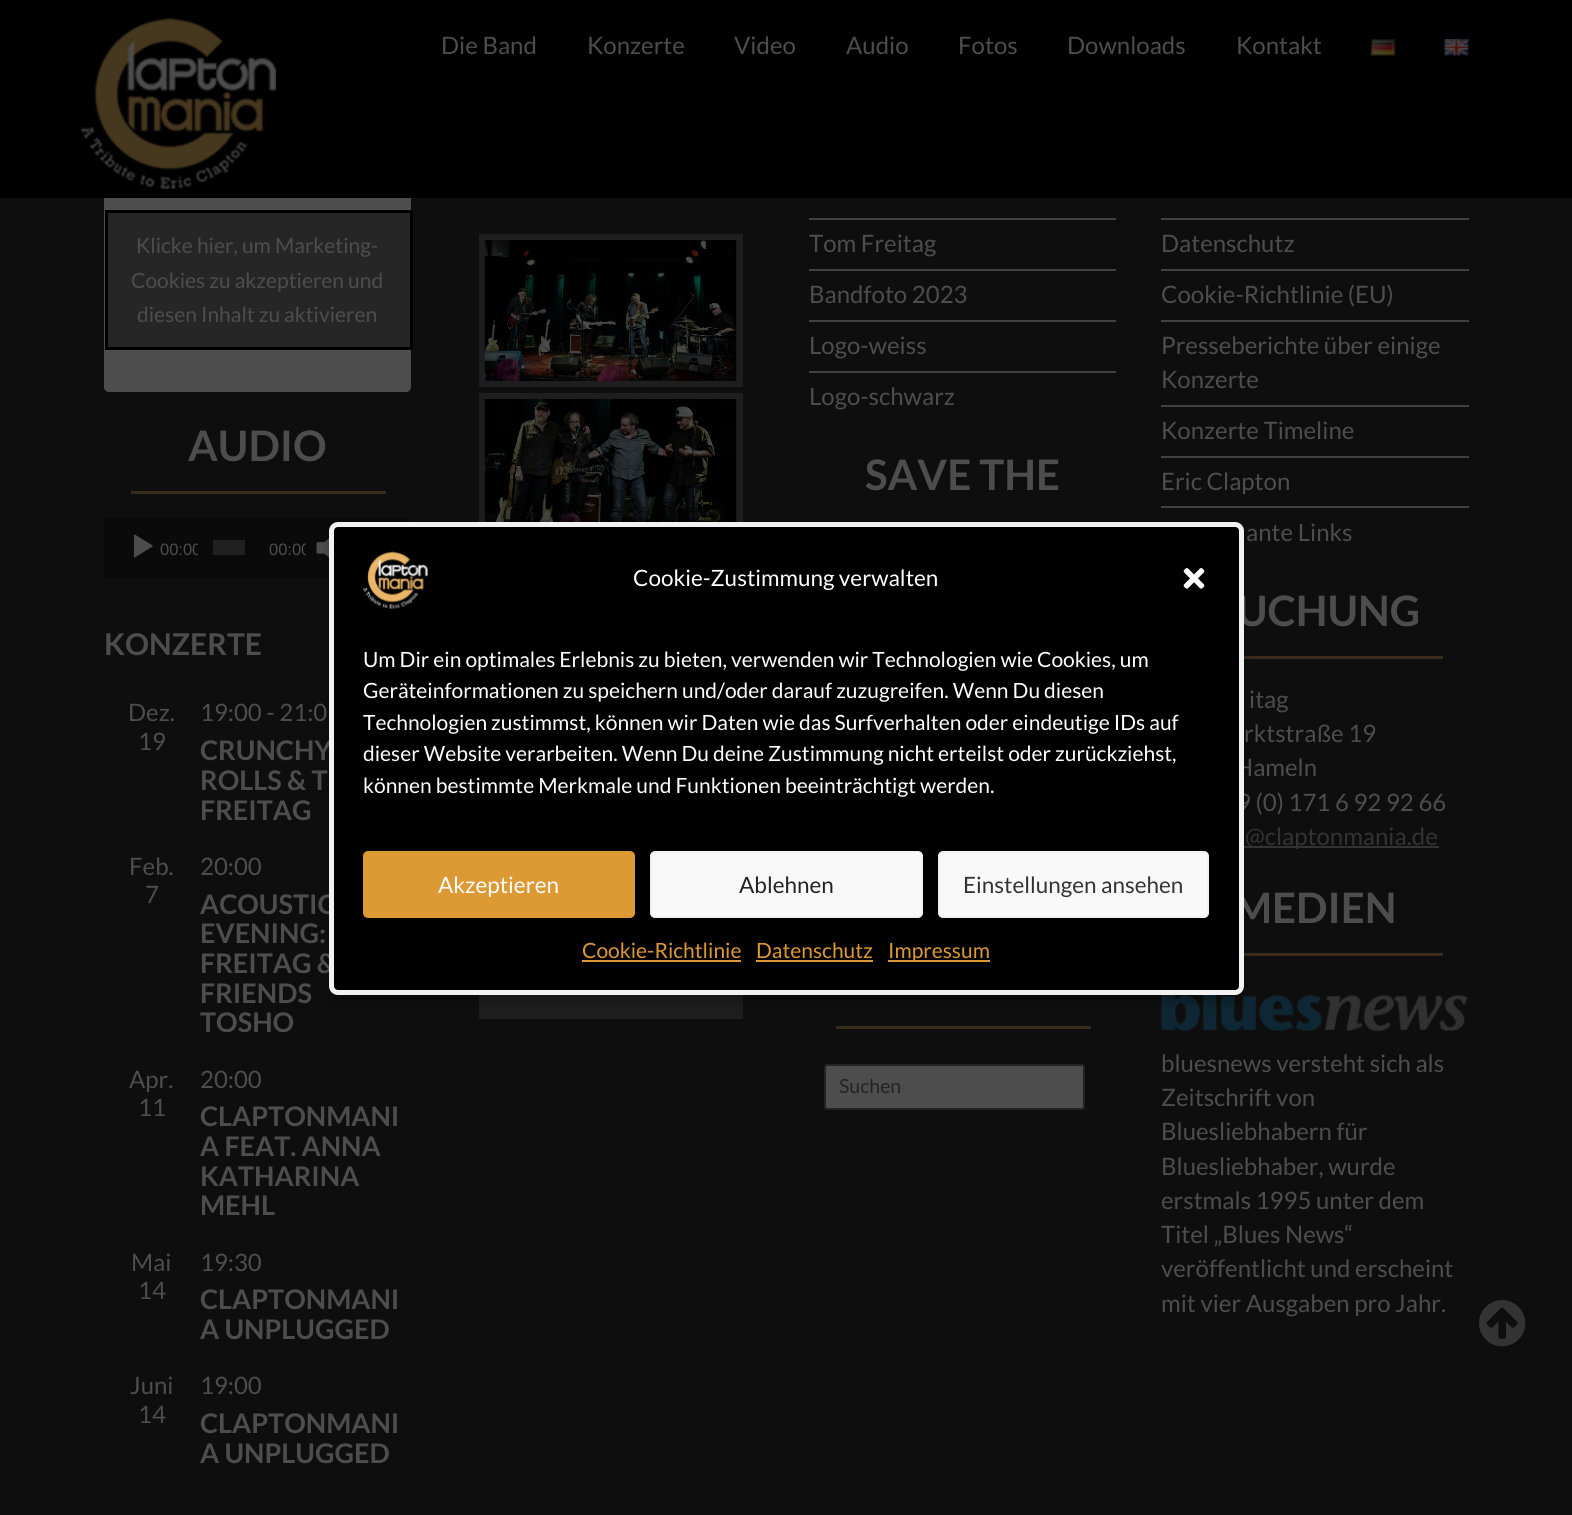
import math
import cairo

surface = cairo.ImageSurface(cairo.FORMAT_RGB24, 1572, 1515)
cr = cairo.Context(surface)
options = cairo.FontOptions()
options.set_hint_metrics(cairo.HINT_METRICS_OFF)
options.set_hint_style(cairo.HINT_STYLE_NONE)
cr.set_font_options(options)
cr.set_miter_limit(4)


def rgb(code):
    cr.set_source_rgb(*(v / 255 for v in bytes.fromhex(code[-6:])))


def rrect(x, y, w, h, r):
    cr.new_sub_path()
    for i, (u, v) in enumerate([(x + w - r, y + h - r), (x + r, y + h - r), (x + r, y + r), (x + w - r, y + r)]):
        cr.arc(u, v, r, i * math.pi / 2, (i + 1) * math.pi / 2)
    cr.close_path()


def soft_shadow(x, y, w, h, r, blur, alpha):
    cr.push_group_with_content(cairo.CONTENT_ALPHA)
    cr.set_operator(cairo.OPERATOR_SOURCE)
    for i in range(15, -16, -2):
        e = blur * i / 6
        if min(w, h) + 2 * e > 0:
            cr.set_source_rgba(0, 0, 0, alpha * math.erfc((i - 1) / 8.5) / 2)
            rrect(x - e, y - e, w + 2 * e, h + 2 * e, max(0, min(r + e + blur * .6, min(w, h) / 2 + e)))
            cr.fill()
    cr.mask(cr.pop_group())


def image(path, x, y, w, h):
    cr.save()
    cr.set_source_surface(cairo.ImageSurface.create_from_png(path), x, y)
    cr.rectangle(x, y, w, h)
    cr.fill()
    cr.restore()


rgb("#0e0e0e")
cr.paint()
rgb("#4d4d4d")
rrect(104, 167, 307, 225, 5)
cr.fill()
rgb("#000000")
cr.rectangle(0, 0, 1572, 198)
cr.fill()
image("img/1.png", 81, 17, 195, 172)
image("img/2.png", 1370, 39, 26, 17)
image("img/3.png", 1444, 39, 25, 17)
cr.set_source_rgba(0, 0, 0, 0.5)
cr.rectangle(106.5, 211.5, 305, 137)
cr.fill_preserve()
rgb("#000000")
cr.set_line_width(3)
cr.stroke()
rgb("#3a2b1b")
cr.rectangle(131, 491, 255, 3)
cr.fill()
rgb("#0a0a0a")
cr.rectangle(104, 518, 307, 60)
cr.fill()
image("img/4.png", 133, 534, 20, 24)
rgb("#202020")
cr.rectangle(213, 540, 32, 15)
cr.fill()
image("img/5.png", 316, 538, 13, 19)
rgb("#1e1e1e")
cr.rectangle(479, 234, 264, 153)
cr.fill()
image("img/6.png", 484, 240, 253, 141)
cr.rectangle(479, 393, 264, 129)
cr.fill()
image("img/7.png", 484, 399, 253, 123)
for x, y, w, h, color in [
    (479, 995, 264, 24, "#1e1e1e"),
    (809, 218, 307, 2, "#414141"),
    (809, 269, 307, 2, "#414141"),
    (809, 320, 307, 2, "#414141"),
    (809, 371, 307, 2, "#414141"),
    (836, 1026, 255, 3, "#3a2b1b"),
]:
    rgb(color)
    cr.rectangle(x, y, w, h)
    cr.fill()
rgb("#4d4d4d")
rrect(825, 1065, 259, 44, 2)
cr.fill_preserve()
rgb("#232323")
cr.set_line_width(2)
cr.stroke()
for x, y, w, h, color in [
    (1161, 218, 308, 2, "#414141"),
    (1161, 269, 308, 2, "#414141"),
    (1161, 320, 308, 2, "#414141"),
    (1161, 405, 308, 2, "#414141"),
    (1161, 456, 308, 2, "#414141"),
    (1161, 506, 308, 2, "#414141"),
    (1244, 656, 199, 3, "#3a2b1b"),
    (1244, 846, 195, 2, "#333333"),
    (1244, 953, 199, 3, "#3a2b1b"),
]:
    rgb(color)
    cr.rectangle(x, y, w, h)
    cr.fill()
image("img/8.png", 1161, 994, 307, 37)
image("img/9.png", 1479, 1300, 47, 47)
rgb("#000000")
soft_shadow(329, 531, 915, 473, 9, 4.5, 0.23)
cr.select_font_face("Lato")
cr.set_font_size(24)
rgb("#4d4d4d")
for x, y, s in [
    (441, 54, "Die Band"),
    (587, 54, "Konzerte"),
    (734, 54, "Video"),
    (846, 54, "Audio"),
    (958, 54, "Fotos"),
    (1067, 54, "Downloads"),
    (1236, 54, "Kontakt"),
]:
    cr.move_to(x, y)
    cr.show_text(s)
cr.set_font_size(21)
for x, y, s in [
    (136, 253, "Klicke hier, um Marketing-"),
    (131, 288, "Cookies zu akzeptieren und"),
    (137, 322, "diesen Inhalt zu aktivieren"),
]:
    cr.move_to(x, y)
    cr.show_text(s)
cr.select_font_face("Lato", cairo.FONT_SLANT_NORMAL, cairo.FONT_WEIGHT_BOLD)
cr.set_font_size(42)
cr.move_to(188, 461)
cr.show_text("AUDIO")
cr.save()
cr.rectangle(152, 518, 46, 60)
cr.clip()
cr.select_font_face("Liberation Sans")
cr.set_font_size(16.5)
cr.move_to(160, 555)
cr.show_text("00:00")
cr.restore()
cr.save()
cr.rectangle(260, 518, 46, 60)
cr.clip()
cr.select_font_face("Liberation Sans")
cr.set_font_size(16.5)
cr.move_to(269, 555)
cr.show_text("00:00")
cr.restore()
cr.set_font_size(30)
cr.move_to(104, 655)
cr.show_text("KONZERTE")
cr.select_font_face("Lato")
cr.set_font_size(24)
for x, y, s in [
    (128, 721, "Dez."),
    (138, 750, "19"),
    (200, 721, "19:00 - 21:0"),
]:
    cr.move_to(x, y)
    cr.show_text(s)
cr.select_font_face("Lato", cairo.FONT_SLANT_NORMAL, cairo.FONT_WEIGHT_BOLD)
cr.set_font_size(27)
for x, y, s in [
    (200, 760, "CRUNCHY"),
    (200, 790, "ROLLS & T"),
    (200, 820, "FREITAG"),
]:
    cr.move_to(x, y)
    cr.show_text(s)
cr.select_font_face("Lato")
cr.set_font_size(24)
for x, y, s in [
    (129, 875, "Feb."),
    (145, 903, "7"),
    (200, 875, "20:00"),
]:
    cr.move_to(x, y)
    cr.show_text(s)
cr.select_font_face("Lato", cairo.FONT_SLANT_NORMAL, cairo.FONT_WEIGHT_BOLD)
cr.set_font_size(27)
for x, y, s in [
    (200, 914, "ACOUSTIC"),
    (200, 943, "EVENING:"),
    (200, 973, "FREITAG &"),
    (200, 1003, "FRIENDS"),
    (200, 1032, "TOSHO"),
]:
    cr.move_to(x, y)
    cr.show_text(s)
cr.select_font_face("Lato")
cr.set_font_size(24)
for x, y, s in [
    (129, 1088, "Apr."),
    (138, 1116, "11"),
    (200, 1088, "20:00"),
]:
    cr.move_to(x, y)
    cr.show_text(s)
cr.select_font_face("Lato", cairo.FONT_SLANT_NORMAL, cairo.FONT_WEIGHT_BOLD)
cr.set_font_size(27)
for x, y, s in [
    (200, 1126, "CLAPTONMANI"),
    (200, 1156, "A FEAT. ANNA"),
    (200, 1186, "KATHARINA"),
    (200, 1215, "MEHL"),
]:
    cr.move_to(x, y)
    cr.show_text(s)
cr.select_font_face("Lato")
cr.set_font_size(24)
for x, y, s in [
    (131, 1271, "Mai"),
    (138, 1299, "14"),
    (200, 1271, "19:30"),
]:
    cr.move_to(x, y)
    cr.show_text(s)
cr.select_font_face("Lato", cairo.FONT_SLANT_NORMAL, cairo.FONT_WEIGHT_BOLD)
cr.set_font_size(27)
cr.move_to(200, 1309)
cr.show_text("CLAPTONMANI")
cr.move_to(200, 1339)
cr.show_text("A UNPLUGGED")
cr.select_font_face("Lato")
cr.set_font_size(24)
for x, y, s in [
    (130, 1394, "Juni"),
    (138, 1423, "14"),
    (200, 1394, "19:00"),
]:
    cr.move_to(x, y)
    cr.show_text(s)
cr.select_font_face("Lato", cairo.FONT_SLANT_NORMAL, cairo.FONT_WEIGHT_BOLD)
cr.set_font_size(27)
cr.move_to(200, 1433)
cr.show_text("CLAPTONMANI")
cr.move_to(200, 1463)
cr.show_text("A UNPLUGGED")
cr.select_font_face("Lato")
cr.set_font_size(24)
for x, y, s in [
    (809, 252, "Tom Freitag"),
    (809, 303, "Bandfoto 2023"),
    (809, 354, "Logo-weiss"),
    (809, 405, "Logo-schwarz"),
]:
    cr.move_to(x, y)
    cr.show_text(s)
cr.select_font_face("Lato", cairo.FONT_SLANT_NORMAL, cairo.FONT_WEIGHT_BOLD)
cr.set_font_size(42)
cr.move_to(865, 490)
cr.show_text("SAVE THE")
cr.select_font_face("Lato")
cr.set_font_size(19.5)
rgb("#232323")
cr.move_to(839, 1093)
cr.show_text("Suchen")
cr.set_font_size(24)
rgb("#4d4d4d")
for x, y, s in [
    (1161, 252, "Datenschutz"),
    (1161, 303, "Cookie-Richtlinie (EU)"),
    (1161, 354, "Presseberichte über einige"),
    (1161, 388, "Konzerte"),
    (1161, 439, "Konzerte Timeline"),
    (1161, 490, "Eric Clapton"),
    (1246, 541, "ante Links"),
]:
    cr.move_to(x, y)
    cr.show_text(s)
cr.select_font_face("Lato", cairo.FONT_SLANT_NORMAL, cairo.FONT_WEIGHT_BOLD)
cr.set_font_size(42)
cr.move_to(1237, 626)
cr.show_text("UCHUNG")
cr.select_font_face("Lato")
cr.set_font_size(24)
for x, y, s in [
    (1249, 708, "itag"),
    (1244, 742, "rktstraße 19"),
    (1235, 776, "Hameln"),
    (1237, 811, "9 (0) 171 6 92 92 66"),
]:
    cr.move_to(x, y)
    cr.show_text(s)
rgb("#333333")
cr.move_to(1245, 845)
cr.show_text("@claptonmania.de")
cr.select_font_face("Lato", cairo.FONT_SLANT_NORMAL, cairo.FONT_WEIGHT_BOLD)
cr.set_font_size(42)
rgb("#4d4d4d")
cr.move_to(1233, 923)
cr.show_text("MEDIEN")
cr.select_font_face("Lato")
cr.set_font_size(24)
for x, y, s in [
    (1161, 1072, "bluesnews versteht sich als"),
    (1161, 1106, "Zeitschrift von"),
    (1161, 1140, "Bluesliebhabern für"),
    (1161, 1175, "Bluesliebhaber, wurde"),
    (1161, 1209, "erstmals 1995 unter dem"),
    (1161, 1243, "Titel „Blues News“"),
    (1161, 1277, "veröffentlicht und erscheint"),
    (1161, 1312, "mit vier Ausgaben pro Jahr."),
]:
    cr.move_to(x, y)
    cr.show_text(s)
rgb("#000000")
rrect(331.5, 524.5, 910, 468, 6.5)
cr.fill_preserve()
rgb("#f2f2f2")
cr.set_line_width(5)
cr.stroke()
image("img/10.png", 363, 551, 65, 58)
cr.set_font_size(22.5)
rgb("#ffffff")
cr.move_to(633, 586)
cr.show_text("Cookie-Zustimmung verwalten")
image("img/11.png", 1183, 568, 22, 21)
cr.set_font_size(21)
for x, y, s in [
    (363, 667, "Um Dir ein optimales Erlebnis zu bieten, verwenden wir Technologien wie Cookies, um"),
    (363, 698, "Geräteinformationen zu speichern und/oder darauf zuzugreifen. Wenn Du diesen"),
    (363, 730, "Technologien zustimmst, können wir Daten wie das Surfverhalten oder eindeutige IDs auf"),
    (363, 761, "dieser Website verarbeiten. Wenn Du deine Zustimmung nicht erteilst oder zurückziehst,"),
    (363, 793, "können bestimmte Merkmale und Funktionen beeinträchtigt werden."),
]:
    cr.move_to(x, y)
    cr.show_text(s)
rgb("#dd9933")
rrect(364, 852, 270, 65, 4)
cr.fill_preserve()
cr.set_line_width(2)
cr.stroke()
cr.set_font_size(22.5)
rgb("#ffffff")
cr.move_to(438, 893)
cr.show_text("Akzeptieren")
rgb("#f9f9f9")
rrect(651, 852, 271, 65, 4)
cr.fill_preserve()
rgb("#f2f2f2")
cr.stroke()
rgb("#232323")
cr.move_to(739, 893)
cr.show_text("Ablehnen")
rgb("#f9f9f9")
rrect(939, 852, 269, 65, 4)
cr.fill_preserve()
rgb("#f2f2f2")
cr.stroke()
rgb("#333333")
cr.move_to(963, 893)
cr.show_text("Einstellungen ansehen")
cr.set_font_size(21)
rgb("#dd9933")
cr.move_to(582, 958)
cr.show_text("Cookie-Richtlinie")
cr.rectangle(582, 960, 159, 2)
cr.fill()
cr.move_to(756, 958)
cr.show_text("Datenschutz")
cr.rectangle(756, 960, 117, 2)
cr.fill()
cr.rectangle(888, 960, 102, 2)
cr.fill()
cr.move_to(888, 958)
cr.show_text("Impressum")
surface.write_to_png("page.png")
